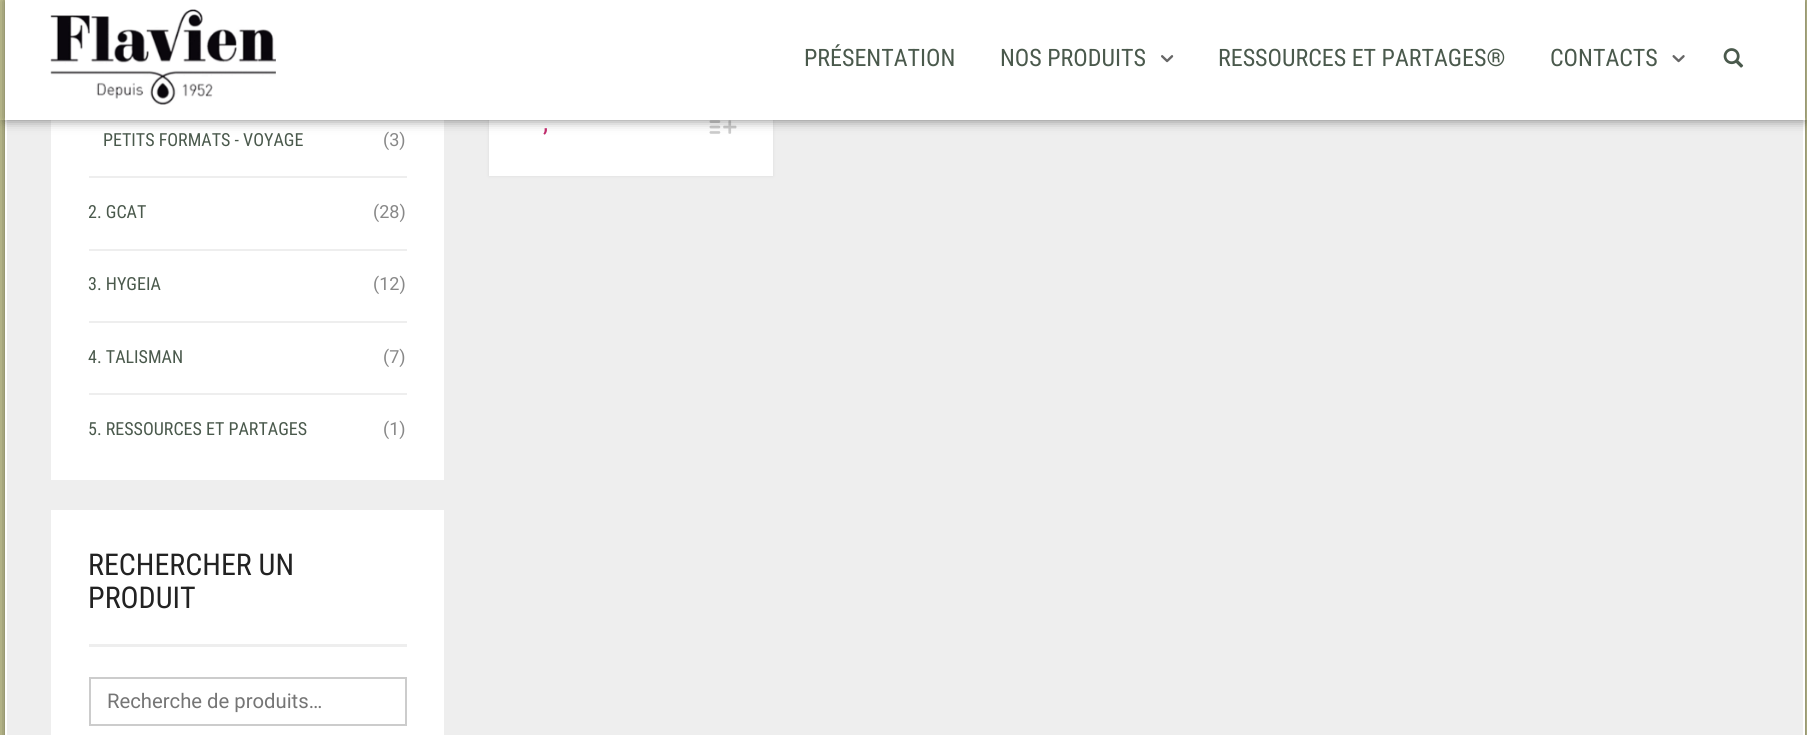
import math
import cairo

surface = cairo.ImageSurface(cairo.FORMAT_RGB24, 1807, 735)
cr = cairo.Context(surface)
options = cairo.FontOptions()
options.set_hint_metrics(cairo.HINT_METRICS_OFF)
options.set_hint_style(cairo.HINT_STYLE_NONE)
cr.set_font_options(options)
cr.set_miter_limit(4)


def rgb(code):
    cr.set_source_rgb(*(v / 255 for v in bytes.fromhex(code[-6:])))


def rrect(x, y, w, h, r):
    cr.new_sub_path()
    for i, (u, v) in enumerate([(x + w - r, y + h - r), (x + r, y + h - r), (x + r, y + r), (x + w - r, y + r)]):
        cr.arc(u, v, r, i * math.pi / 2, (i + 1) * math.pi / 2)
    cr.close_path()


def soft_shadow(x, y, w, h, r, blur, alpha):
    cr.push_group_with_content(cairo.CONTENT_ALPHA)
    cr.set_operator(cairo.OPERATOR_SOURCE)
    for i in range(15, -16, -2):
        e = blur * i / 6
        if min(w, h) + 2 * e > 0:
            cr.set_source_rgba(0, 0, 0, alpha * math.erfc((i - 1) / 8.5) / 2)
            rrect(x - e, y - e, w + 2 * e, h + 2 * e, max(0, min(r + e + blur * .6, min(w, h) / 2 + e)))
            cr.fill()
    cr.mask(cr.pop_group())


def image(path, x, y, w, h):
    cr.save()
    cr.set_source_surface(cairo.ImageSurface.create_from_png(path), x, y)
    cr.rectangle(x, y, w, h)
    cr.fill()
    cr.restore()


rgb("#cccc99")
cr.paint()
rgb("#000000")
soft_shadow(5, -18, 1776, 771, 0, 6, 0.5)
soft_shadow(29, -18, 1776, 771, 0, 6, 0.5)
rgb("#eeeeee")
cr.rectangle(7, 120, 1796, 615)
cr.fill()
rgb("#cccccc")
soft_shadow(489, -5, 284, 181, 0, 1.5, 0.5)
for x, y, w, h, color in [
    (0, 0, 1807, 120, "#cccc99"),
    (1803, 120, 2, 615, "#ffffff"),
    (5, 120, 2, 615, "#ffffff"),
    (51, 120, 393, 360, "#ffffff"),
    (489, 120, 284, 56, "#ffffff"),
]:
    rgb(color)
    cr.rectangle(x, y, w, h)
    cr.fill()
image("img/5.png", 709, 120, 28, 14)
rgb("#000000")
soft_shadow(5, 0, 1800, 120, 0, 6, 0.5)
rgb("#ffffff")
cr.rectangle(5, 0, 1800, 120)
cr.fill()
image("img/1.png", 50, 9, 226, 96)
image("img/2.png", 1161, 55, 13, 8)
image("img/3.png", 1672, 55, 13, 8)
image("img/4.png", 1723, 48, 21, 20)
for x, y, w, h, color in [
    (89, 176, 318, 2, "#eeeeee"),
    (89, 249, 318, 2, "#eeeeee"),
    (89, 321, 318, 2, "#eeeeee"),
    (89, 393, 318, 2, "#eeeeee"),
    (51, 510, 393, 225, "#ffffff"),
    (89, 644, 318, 3, "#eeeeee"),
]:
    rgb(color)
    cr.rectangle(x, y, w, h)
    cr.fill()
cr.rectangle(90, 678, 316, 47)
rgb("#cccccc")
cr.stroke()
cr.select_font_face("Roboto Condensed")
cr.set_font_size(24)
rgb("#4a594c")
for x, y, s in [
    (804, 66, "PRÉSENTATION"),
    (1000, 66, "NOS PRODUITS"),
    (1218, 66, "RESSOURCES ET PARTAGES®"),
    (1550, 66, "CONTACTS"),
]:
    cr.move_to(x, y)
    cr.show_text(s)
cr.set_font_size(18)
cr.move_to(103, 146)
cr.show_text("PETITS FORMATS - VOYAGE")
cr.select_font_face("Roboto")
rgb("#888888")
cr.move_to(383, 146)
cr.show_text("(3)")
cr.select_font_face("Roboto Condensed")
rgb("#4a594c")
cr.move_to(88, 218)
cr.show_text("2. GCAT")
cr.select_font_face("Roboto")
rgb("#888888")
cr.move_to(373, 218)
cr.show_text("(28)")
cr.select_font_face("Roboto Condensed")
rgb("#4a594c")
cr.move_to(88, 290)
cr.show_text("3. HYGEIA")
cr.select_font_face("Roboto")
rgb("#888888")
cr.move_to(373, 290)
cr.show_text("(12)")
cr.select_font_face("Roboto Condensed")
rgb("#4a594c")
cr.move_to(88, 363)
cr.show_text("4. TALISMAN")
cr.select_font_face("Roboto")
rgb("#888888")
cr.move_to(383, 363)
cr.show_text("(7)")
cr.select_font_face("Roboto Condensed")
rgb("#4a594c")
cr.move_to(88, 435)
cr.show_text("5. RESSOURCES ET PARTAGES")
cr.select_font_face("Roboto")
rgb("#888888")
cr.move_to(383, 435)
cr.show_text("(1)")
cr.select_font_face("Roboto Condensed")
cr.set_font_size(30)
rgb("#222222")
cr.move_to(88, 575)
cr.show_text("RECHERCHER UN")
cr.move_to(88, 608)
cr.show_text("PRODUIT")
cr.select_font_face("Roboto")
cr.set_font_size(20.25)
rgb("#757575")
cr.move_to(107, 708)
cr.show_text("Recherche de produits…")
cr.select_font_face("Roboto Condensed")
cr.set_font_size(26)
rgb("#bf2b6b")
cr.move_to(543, 131)
cr.show_text(",")
surface.write_to_png("page.png")
